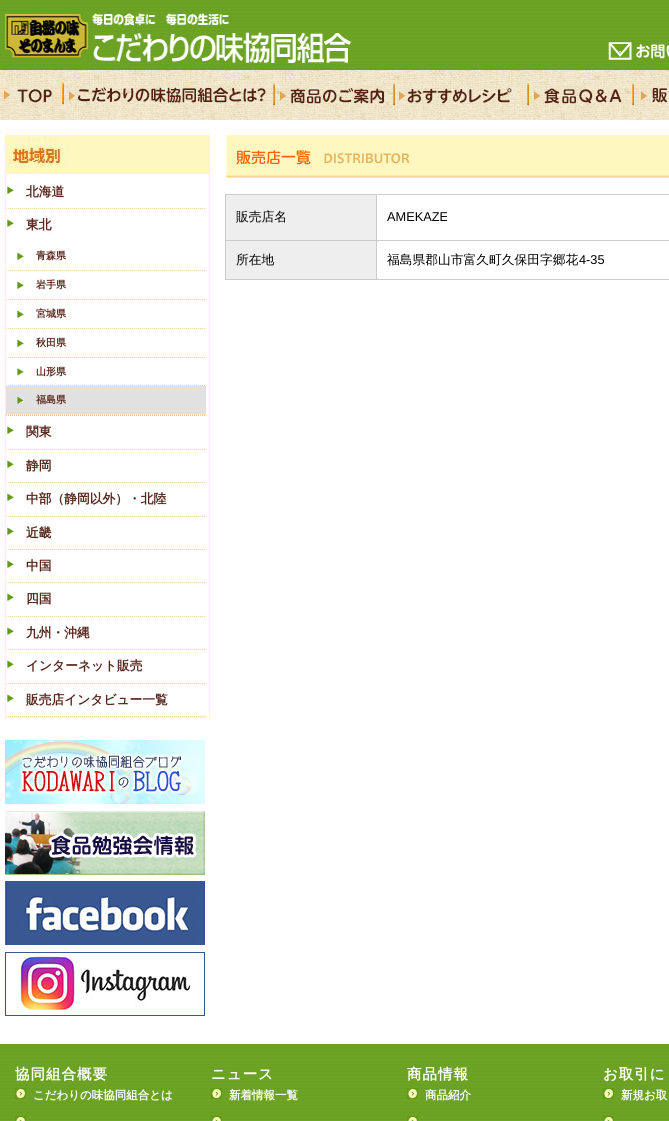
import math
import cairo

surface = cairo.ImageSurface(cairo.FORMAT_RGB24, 669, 1121)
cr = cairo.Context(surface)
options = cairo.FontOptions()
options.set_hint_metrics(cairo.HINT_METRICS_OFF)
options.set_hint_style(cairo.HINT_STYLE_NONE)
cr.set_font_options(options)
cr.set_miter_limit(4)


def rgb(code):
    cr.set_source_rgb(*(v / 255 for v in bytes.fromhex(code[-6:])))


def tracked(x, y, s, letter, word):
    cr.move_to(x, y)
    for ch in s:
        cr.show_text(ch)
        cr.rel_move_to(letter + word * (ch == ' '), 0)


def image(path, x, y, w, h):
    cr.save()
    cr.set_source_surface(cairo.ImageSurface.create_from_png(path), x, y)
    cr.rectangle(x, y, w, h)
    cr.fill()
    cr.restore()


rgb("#ffffff")
cr.paint()
image("img/1.png", 0, 0, 669, 70)
image("img/2.png", 5, 13, 347, 50)
image("img/3.png", 608, 42, 61, 18)
image("img/4.png", 0, 70, 65, 50)
image("img/5.png", 65, 70, 211, 50)
image("img/6.png", 276, 70, 120, 50)
image("img/7.png", 396, 70, 134, 50)
image("img/8.png", 530, 70, 105, 50)
image("img/9.png", 635, 70, 34, 50)
image("img/10.png", 6, 136, 203, 38)
cr.rectangle(5.5, 135.5, 204, 582)
rgb("#fff7bf")
cr.set_line_width(1)
cr.stroke()
image("img/11.png", 7, 186, 7, 8)
cr.new_path()
cr.move_to(6, 208.5)
cr.line_to(206, 208.5)
rgb("#ffcc99")
cr.set_dash([1, 1])
cr.stroke()
image("img/11.png", 7, 219, 7, 8)
cr.new_path()
cr.move_to(6, 415.5)
cr.line_to(206, 415.5)
cr.stroke()
image("img/12.png", 17, 252, 7, 9)
cr.new_path()
cr.move_to(6, 270.5)
cr.line_to(206, 270.5)
cr.stroke()
image("img/12.png", 17, 281, 7, 9)
cr.new_path()
cr.move_to(6, 299.5)
cr.line_to(206, 299.5)
cr.stroke()
image("img/12.png", 17, 310, 7, 9)
cr.new_path()
cr.move_to(6, 328.5)
cr.line_to(206, 328.5)
cr.stroke()
image("img/12.png", 17, 339, 7, 9)
cr.new_path()
cr.move_to(6, 357.5)
cr.line_to(206, 357.5)
cr.stroke()
image("img/13.png", 17, 367, 7, 9)
cr.new_path()
cr.move_to(6, 385.5)
cr.line_to(206, 385.5)
cr.stroke()
cr.new_path()
cr.move_to(6, 414.5)
cr.line_to(206, 414.5)
cr.stroke()
rgb("#e1e1e1")
cr.rectangle(6, 386, 200, 28)
cr.fill()
image("img/14.png", 17, 396, 7, 9)
image("img/11.png", 7, 426, 7, 8)
cr.new_path()
cr.move_to(6, 449.5)
cr.line_to(206, 449.5)
rgb("#ffcc99")
cr.stroke()
image("img/11.png", 7, 460, 7, 8)
cr.new_path()
cr.move_to(6, 482.5)
cr.line_to(206, 482.5)
cr.stroke()
image("img/11.png", 7, 493, 7, 8)
cr.new_path()
cr.move_to(6, 516.5)
cr.line_to(206, 516.5)
cr.stroke()
image("img/11.png", 7, 527, 7, 8)
cr.new_path()
cr.move_to(6, 549.5)
cr.line_to(206, 549.5)
cr.stroke()
image("img/11.png", 7, 560, 7, 8)
cr.new_path()
cr.move_to(6, 582.5)
cr.line_to(206, 582.5)
cr.stroke()
image("img/11.png", 7, 593, 7, 8)
cr.new_path()
cr.move_to(6, 616.5)
cr.line_to(206, 616.5)
cr.stroke()
image("img/11.png", 7, 627, 7, 8)
cr.new_path()
cr.move_to(6, 649.5)
cr.line_to(206, 649.5)
cr.stroke()
image("img/11.png", 7, 660, 7, 8)
cr.new_path()
cr.move_to(6, 683.5)
cr.line_to(206, 683.5)
cr.stroke()
image("img/11.png", 7, 694, 7, 8)
cr.new_path()
cr.move_to(6, 716.5)
cr.line_to(206, 716.5)
cr.stroke()
image("img/15.png", 5, 740, 200, 64)
image("img/16.png", 5, 811, 200, 64)
image("img/17.png", 5, 881, 200, 64)
image("img/18.png", 5, 952, 200, 64)
image("img/19.png", 225, 135, 444, 44)
for x, y, w, h, color in [
    (225, 194, 444, 1, "#cccccc"),
    (225, 279, 444, 1, "#cccccc"),
    (225, 194, 1, 86, "#cccccc"),
    (226, 195, 150, 45, "#eeeeee"),
    (376, 240, 293, 1, "#cccccc"),
    (376, 240, 1, 40, "#cccccc"),
    (225, 240, 152, 1, "#cccccc"),
    (376, 194, 1, 47, "#cccccc"),
    (226, 241, 150, 38, "#eeeeee"),
]:
    rgb(color)
    cr.rectangle(x, y, w, h)
    cr.fill()
image("img/20.png", 0, 1044, 669, 77)
image("img/21.png", 15, 1088, 11, 11)
image("img/22.png", 15, 1116, 11, 5)
image("img/21.png", 211, 1088, 11, 11)
image("img/22.png", 211, 1116, 11, 5)
image("img/21.png", 407, 1088, 11, 11)
image("img/22.png", 407, 1116, 11, 5)
image("img/21.png", 603, 1088, 11, 11)
image("img/22.png", 603, 1116, 11, 5)
cr.select_font_face("WenQuanYi Zen Hei", cairo.FONT_SLANT_NORMAL, cairo.FONT_WEIGHT_BOLD)
cr.set_font_size(12.75)
rgb("#58261b")
cr.move_to(26, 196)
cr.show_text("北海道")
cr.move_to(26, 229)
cr.show_text("東北")
cr.set_font_size(10)
for x, y, s in [
    (36, 259, "青森県"),
    (36, 288, "岩手県"),
    (36, 317, "宮城県"),
    (36, 346, "秋田県"),
    (36, 375, "山形県"),
    (36, 403, "福島県"),
]:
    cr.move_to(x, y)
    cr.show_text(s)
cr.set_font_size(12.75)
for x, y, s in [
    (26, 436, "関東"),
    (26, 470, "静岡"),
    (26, 503, "中部（静岡以外）・北陸"),
    (26, 537, "近畿"),
    (26, 570, "中国"),
    (26, 603, "四国"),
    (26, 637, "九州・沖縄"),
    (26, 670, "インターネット販売"),
    (26, 704, "販売店インタビュー一覧"),
]:
    cr.move_to(x, y)
    cr.show_text(s)
cr.select_font_face("WenQuanYi Zen Hei Medium")
rgb("#000000")
cr.move_to(236, 221)
cr.show_text("販売店名")
cr.select_font_face("Liberation Sans")
cr.move_to(387, 221)
cr.show_text("AMEKAZE")
cr.select_font_face("WenQuanYi Zen Hei Medium")
cr.move_to(236, 264)
cr.show_text("所在地")
cr.move_to(387, 264)
cr.show_text("福島県郡山市富久町久保田字郷花")
cr.select_font_face("Liberation Sans")
cr.move_to(579, 264)
cr.show_text("4-35")
cr.select_font_face("WenQuanYi Zen Hei", cairo.FONT_SLANT_NORMAL, cairo.FONT_WEIGHT_BOLD)
cr.set_font_size(14.5)
rgb("#ffffff")
tracked(15, 1079, "協同組合概要", 1, 0)
cr.set_font_size(11.5)
cr.move_to(33, 1099)
cr.show_text("こだわりの味協同組合とは")
cr.set_font_size(14.5)
tracked(211, 1079, "ニュース", 1, 0)
cr.set_font_size(11.5)
cr.move_to(229, 1099)
cr.show_text("新着情報一覧")
cr.set_font_size(14.5)
tracked(407, 1079, "商品情報", 1, 0)
cr.set_font_size(11.5)
cr.move_to(425, 1099)
cr.show_text("商品紹介")
cr.set_font_size(14.5)
tracked(603, 1079, "お取引に", 1, 0)
cr.set_font_size(11.5)
cr.move_to(621, 1099)
cr.show_text("新規お取")
surface.write_to_png("page.png")
